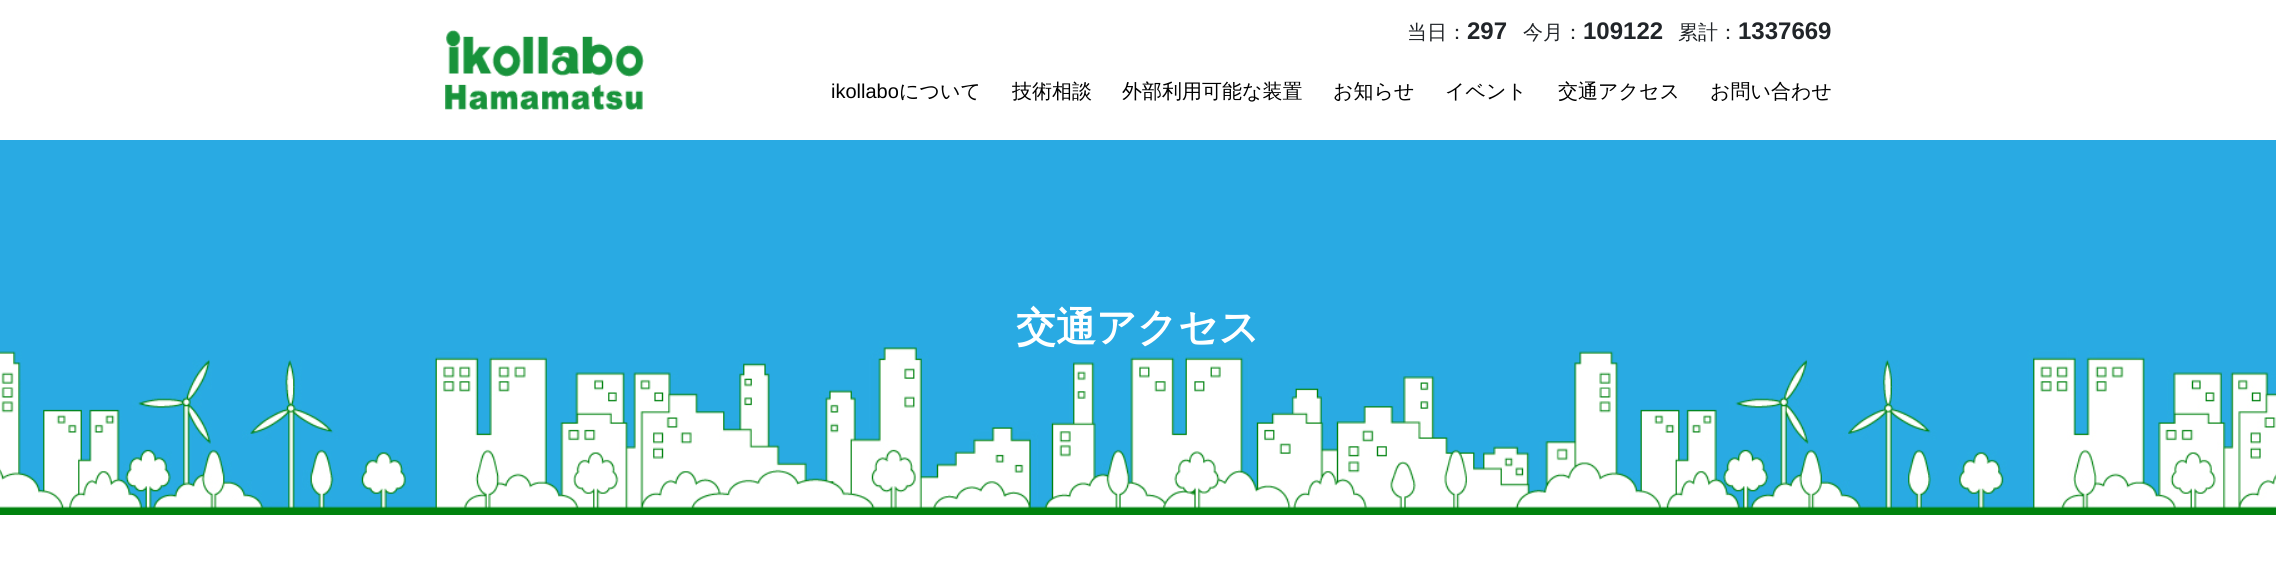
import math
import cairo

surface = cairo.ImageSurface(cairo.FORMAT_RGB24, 2276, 571)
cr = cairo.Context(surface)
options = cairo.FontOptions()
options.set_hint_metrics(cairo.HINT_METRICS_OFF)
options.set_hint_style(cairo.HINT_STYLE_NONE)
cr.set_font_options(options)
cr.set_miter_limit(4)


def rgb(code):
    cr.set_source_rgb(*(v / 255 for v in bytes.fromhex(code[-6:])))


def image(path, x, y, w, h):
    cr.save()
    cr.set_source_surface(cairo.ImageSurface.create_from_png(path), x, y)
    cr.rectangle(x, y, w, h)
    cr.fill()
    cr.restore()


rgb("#ffffff")
cr.paint()
image("img/1.png", 445, 30, 199, 80)
image("img/2.png", 0, 140, 2276, 375)
cr.select_font_face("WenQuanYi Zen Hei Medium")
cr.set_font_size(20)
rgb("#212529")
cr.move_to(1407, 39)
cr.show_text("当日：")
cr.select_font_face("Liberation Sans", cairo.FONT_SLANT_NORMAL, cairo.FONT_WEIGHT_BOLD)
cr.set_font_size(24)
cr.move_to(1467, 39)
cr.show_text("297")
cr.select_font_face("WenQuanYi Zen Hei Medium")
cr.set_font_size(20)
cr.move_to(1523, 39)
cr.show_text("今月：")
cr.select_font_face("Liberation Sans", cairo.FONT_SLANT_NORMAL, cairo.FONT_WEIGHT_BOLD)
cr.set_font_size(24)
cr.move_to(1583, 39)
cr.show_text("109122")
cr.select_font_face("WenQuanYi Zen Hei Medium")
cr.set_font_size(20)
cr.move_to(1678, 39)
cr.show_text("累計：")
cr.select_font_face("Liberation Sans", cairo.FONT_SLANT_NORMAL, cairo.FONT_WEIGHT_BOLD)
cr.set_font_size(24)
cr.move_to(1738, 39)
cr.show_text("1337669")
cr.select_font_face("Liberation Sans")
cr.set_font_size(20)
rgb("#000000")
cr.move_to(831, 98)
cr.show_text("ikollabo")
cr.select_font_face("WenQuanYi Zen Hei Medium")
for x, y, s in [
    (899, 98, "について"),
    (1012, 98, "技術相談"),
    (1122, 98, "外部利用可能な装置"),
    (1333, 98, "お知らせ"),
    (1445, 98, "イベント"),
    (1558, 98, "交通アクセス"),
    (1710, 98, "お問い合わせ"),
]:
    cr.move_to(x, y)
    cr.show_text(s)
cr.select_font_face("WenQuanYi Zen Hei", cairo.FONT_SLANT_NORMAL, cairo.FONT_WEIGHT_BOLD)
cr.set_font_size(40)
rgb("#ffffff")
cr.move_to(1016, 341)
cr.show_text("交通アクセス")
surface.write_to_png("page.png")
